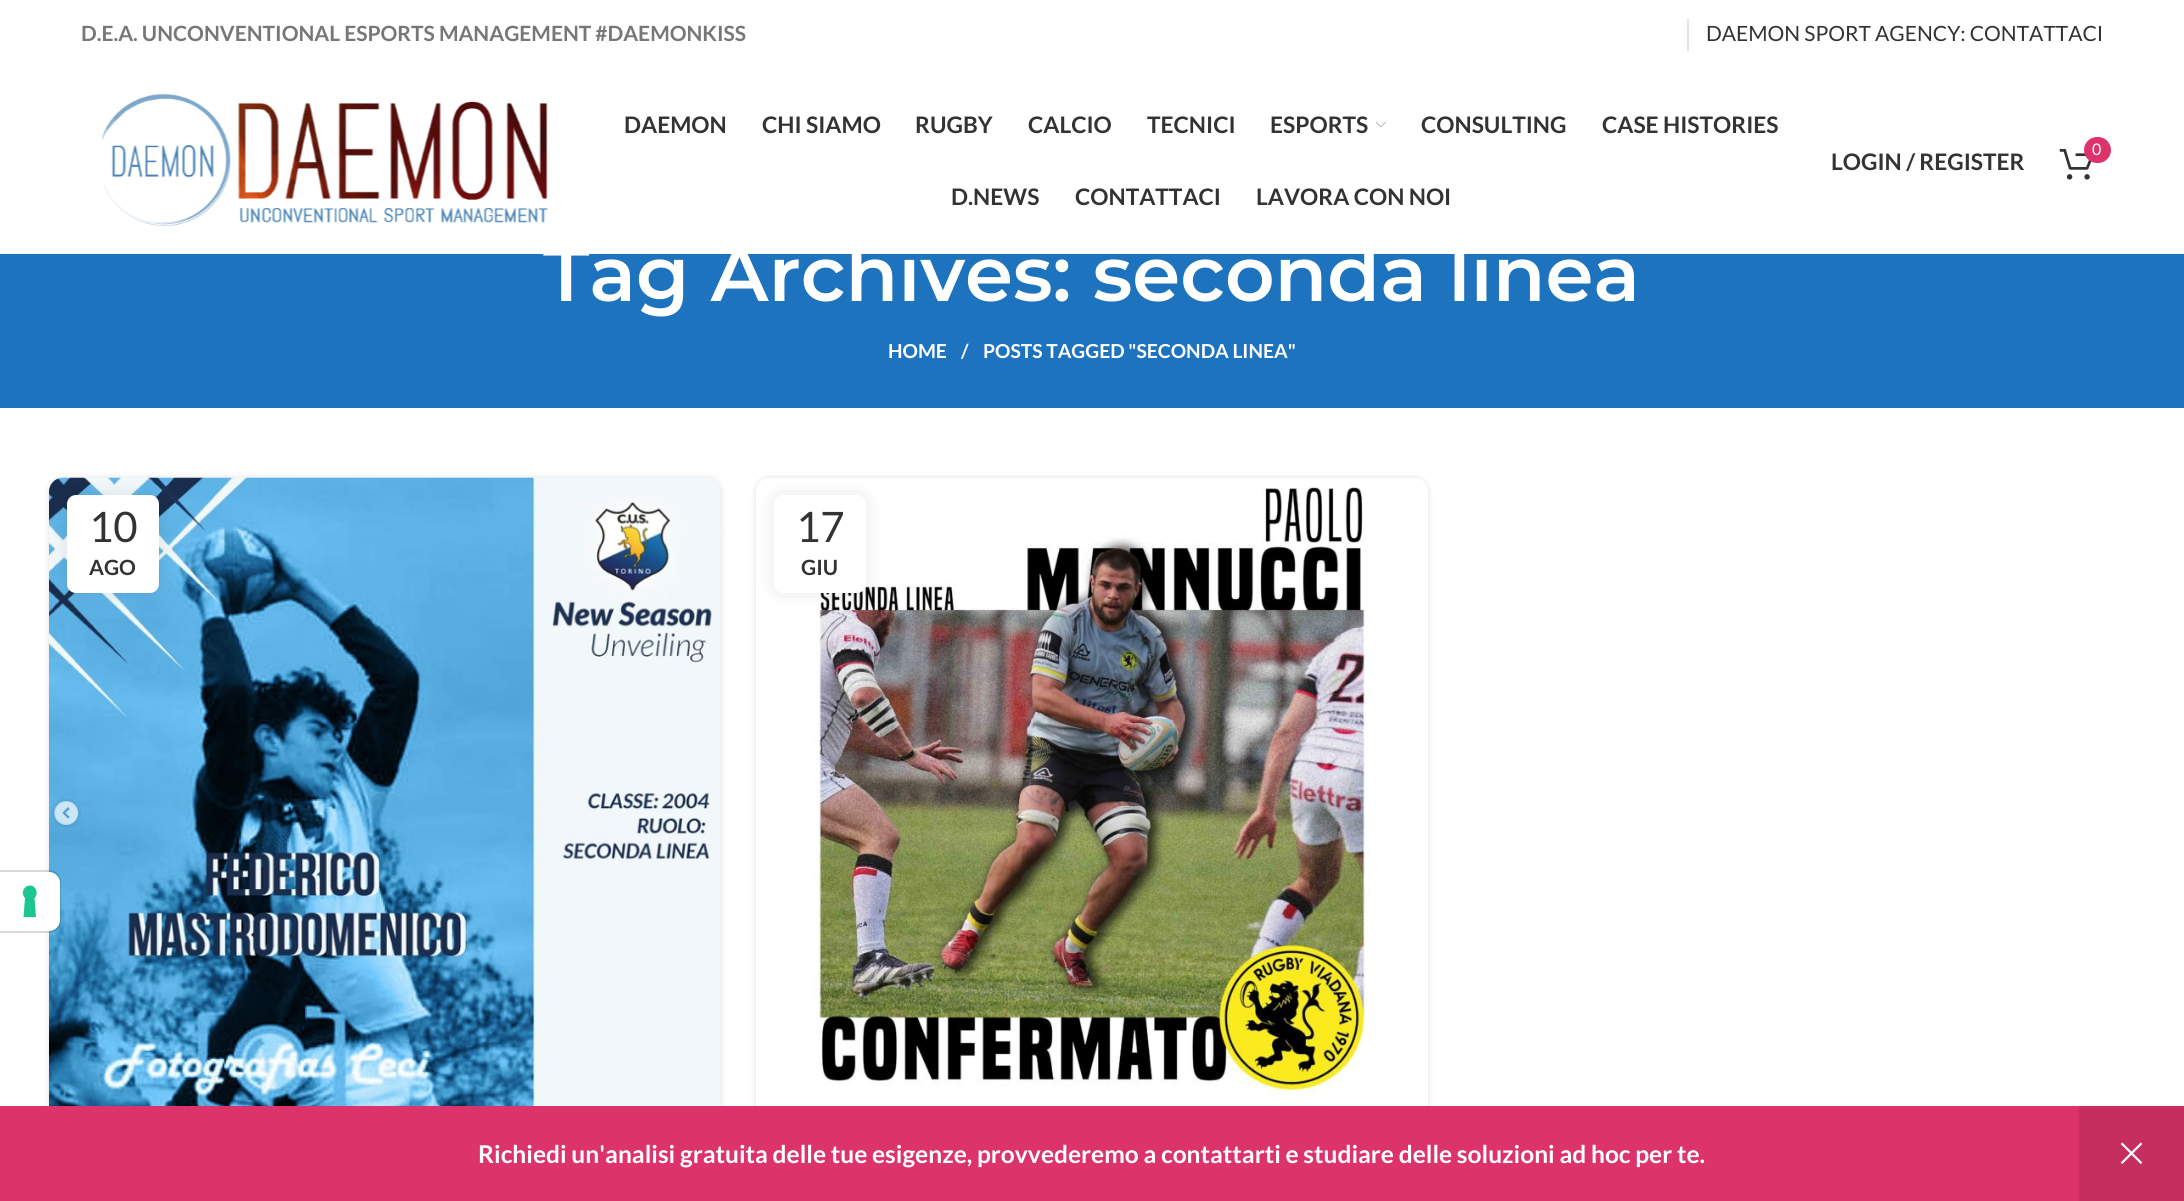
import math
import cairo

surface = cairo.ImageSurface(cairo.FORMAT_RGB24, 2184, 1201)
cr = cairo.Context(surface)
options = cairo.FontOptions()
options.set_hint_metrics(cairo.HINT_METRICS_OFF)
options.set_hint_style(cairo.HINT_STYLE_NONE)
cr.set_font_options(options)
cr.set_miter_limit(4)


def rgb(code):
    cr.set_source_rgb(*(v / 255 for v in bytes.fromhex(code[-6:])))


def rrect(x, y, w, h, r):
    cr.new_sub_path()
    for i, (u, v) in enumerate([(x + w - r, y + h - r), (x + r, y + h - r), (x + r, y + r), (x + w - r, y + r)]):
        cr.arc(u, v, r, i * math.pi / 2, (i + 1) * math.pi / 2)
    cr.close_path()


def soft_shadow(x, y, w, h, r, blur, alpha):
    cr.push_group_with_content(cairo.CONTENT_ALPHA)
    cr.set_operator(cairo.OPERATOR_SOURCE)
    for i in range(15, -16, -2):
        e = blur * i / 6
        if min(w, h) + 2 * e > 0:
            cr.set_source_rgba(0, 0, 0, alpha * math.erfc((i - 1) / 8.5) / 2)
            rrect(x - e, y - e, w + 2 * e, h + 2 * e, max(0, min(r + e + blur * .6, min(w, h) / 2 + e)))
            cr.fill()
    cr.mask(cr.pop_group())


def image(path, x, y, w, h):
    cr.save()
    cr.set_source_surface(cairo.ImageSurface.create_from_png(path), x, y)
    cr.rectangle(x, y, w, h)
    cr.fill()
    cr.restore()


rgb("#ffffff")
cr.paint()
rgb("#e4e4e4")
cr.rectangle(1687, 19, 2, 32)
cr.fill()
image("img/1.png", 101, 93, 448, 134)
image("img/2.png", 1375, 121, 11, 7)
image("img/3.png", 2059, 149, 33, 31)
rgb("#dd336b")
rrect(2084, 137, 27, 26, 13)
cr.fill()
rgb("#1e73be")
cr.rectangle(0, 254, 2184, 154)
cr.fill()
rgb("#000000")
soft_shadow(49, 478, 672, 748, 14, 3.5, 0.12)
image("img/4.png", 49, 477, 672, 629)
soft_shadow(67, 495, 92, 98, 9, 8, 0.1)
rgb("#ffffff")
rrect(67, 495, 92, 98, 9)
cr.fill()
cr.save()
cr.set_fill_rule(cairo.FILL_RULE_EVEN_ODD)
cr.new_path()
cr.move_to(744, 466)
cr.line_to(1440, 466)
cr.line_to(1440, 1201)
cr.line_to(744, 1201)
cr.close_path()
cr.move_to(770, 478)
cr.line_to(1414, 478)
cr.curve_to(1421.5, 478, 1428, 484.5, 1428, 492)
cr.line_to(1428, 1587)
cr.curve_to(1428, 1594.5, 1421.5, 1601, 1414, 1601)
cr.line_to(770, 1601)
cr.curve_to(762.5, 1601, 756, 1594.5, 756, 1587)
cr.line_to(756, 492)
cr.curve_to(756, 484.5, 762.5, 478, 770, 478)
cr.close_path()
cr.clip()
rgb("#000000")
soft_shadow(756, 478, 672, 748, 14, 3.5, 0.12)
cr.restore()
image("img/5.png", 760, 479, 667, 621)
rgb("#000000")
soft_shadow(774, 495, 92, 98, 9, 8, 0.1)
rgb("#ffffff")
rrect(774, 495, 92, 98, 9)
cr.fill()
cr.new_path()
cr.move_to(-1, 871)
cr.line_to(49, 871)
cr.curve_to(55, 871, 60, 876, 60, 882)
cr.line_to(60, 921)
cr.curve_to(60, 927, 55, 932, 49, 932)
cr.line_to(-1, 932)
cr.close_path()
cr.set_source_rgba(0, 0, 0, 0.15)
cr.stroke()
rgb("#ffffff")
cr.new_path()
cr.move_to(0, 872)
cr.line_to(49, 872)
cr.curve_to(55, 872, 60, 877, 60, 883)
cr.line_to(60, 920)
cr.curve_to(60, 926, 55, 931, 49, 931)
cr.line_to(0, 931)
cr.close_path()
cr.fill()
rgb("#1cc691")
cr.set_fill_rule(cairo.FILL_RULE_EVEN_ODD)
cr.new_path()
cr.move_to(30, 885.5)
cr.curve_to(36, 885.5, 39, 893.5, 34.5, 898)
cr.line_to(36, 917)
cr.line_to(23.5, 917)
cr.line_to(25, 898)
cr.curve_to(20.5, 893.5, 23.5, 885.5, 30, 885.5)
cr.close_path()
cr.fill()
rgb("#dd336b")
cr.rectangle(0, 1106, 2079, 95)
cr.fill()
rgb("#c72e60")
cr.rectangle(2079, 1106, 105, 95)
cr.fill()
image("img/6.png", 2120, 1142, 23, 22)
cr.select_font_face("Lato", cairo.FONT_SLANT_NORMAL, cairo.FONT_WEIGHT_BOLD)
cr.set_font_size(21)
rgb("#777777")
cr.move_to(81, 41)
cr.show_text("D.E.A. UNCONVENTIONAL ESPORTS MANAGEMENT #DAEMONKISS")
cr.select_font_face("Lato")
rgb("#333333")
cr.move_to(1706, 41)
cr.show_text("DAEMON SPORT AGENCY: CONTATTACI")
cr.select_font_face("Lato", cairo.FONT_SLANT_NORMAL, cairo.FONT_WEIGHT_BOLD)
cr.set_font_size(22.75)
for x, y, s in [
    (624, 133, "DAEMON"),
    (762, 133, "CHI SIAMO"),
    (915, 133, "RUGBY"),
    (1028, 133, "CALCIO"),
    (1147, 133, "TECNICI"),
    (1270, 133, "ESPORTS"),
    (1421, 133, "CONSULTING"),
    (1602, 133, "CASE HISTORIES"),
    (951, 205, "D.NEWS"),
    (1075, 205, "CONTATTACI"),
    (1256, 205, "LAVORA CON NOI"),
]:
    cr.move_to(x, y)
    cr.show_text(s)
cr.select_font_face("Lato")
cr.set_font_size(16)
rgb("#ffffff")
cr.move_to(2092, 155)
cr.show_text("0")
cr.select_font_face("Lato", cairo.FONT_SLANT_NORMAL, cairo.FONT_WEIGHT_BOLD)
cr.set_font_size(22.75)
rgb("#333333")
cr.move_to(1831, 170)
cr.show_text("LOGIN / REGISTER")
cr.select_font_face("Montserrat SemiBold")
cr.set_font_size(77)
rgb("#ffffff")
cr.move_to(543, 301)
cr.show_text("Tag Archives: seconda linea")
cr.select_font_face("Lato", cairo.FONT_SLANT_NORMAL, cairo.FONT_WEIGHT_BOLD)
cr.set_font_size(19.25)
for x, y, s in [
    (888, 358, "HOME"),
    (961, 358, "/"),
    (983, 358, "POSTS TAGGED \"SECONDA LINEA\""),
]:
    cr.move_to(x, y)
    cr.show_text(s)
cr.select_font_face("Lato")
cr.set_font_size(42)
rgb("#333333")
cr.move_to(89, 542)
cr.show_text("10")
cr.select_font_face("Lato", cairo.FONT_SLANT_NORMAL, cairo.FONT_WEIGHT_BOLD)
cr.set_font_size(21)
cr.move_to(89, 575)
cr.show_text("AGO")
cr.select_font_face("Lato")
cr.set_font_size(42)
cr.move_to(796, 542)
cr.show_text("17")
cr.select_font_face("Lato", cairo.FONT_SLANT_NORMAL, cairo.FONT_WEIGHT_BOLD)
cr.set_font_size(21)
cr.move_to(801, 575)
cr.show_text("GIU")
cr.set_font_size(24.5)
rgb("#ffffff")
cr.move_to(478, 1163)
cr.show_text("Richiedi un'analisi gratuita delle tue esigenze, provvederemo a contattarti e studiare delle soluzioni ad hoc per te.")
surface.write_to_png("page.png")
